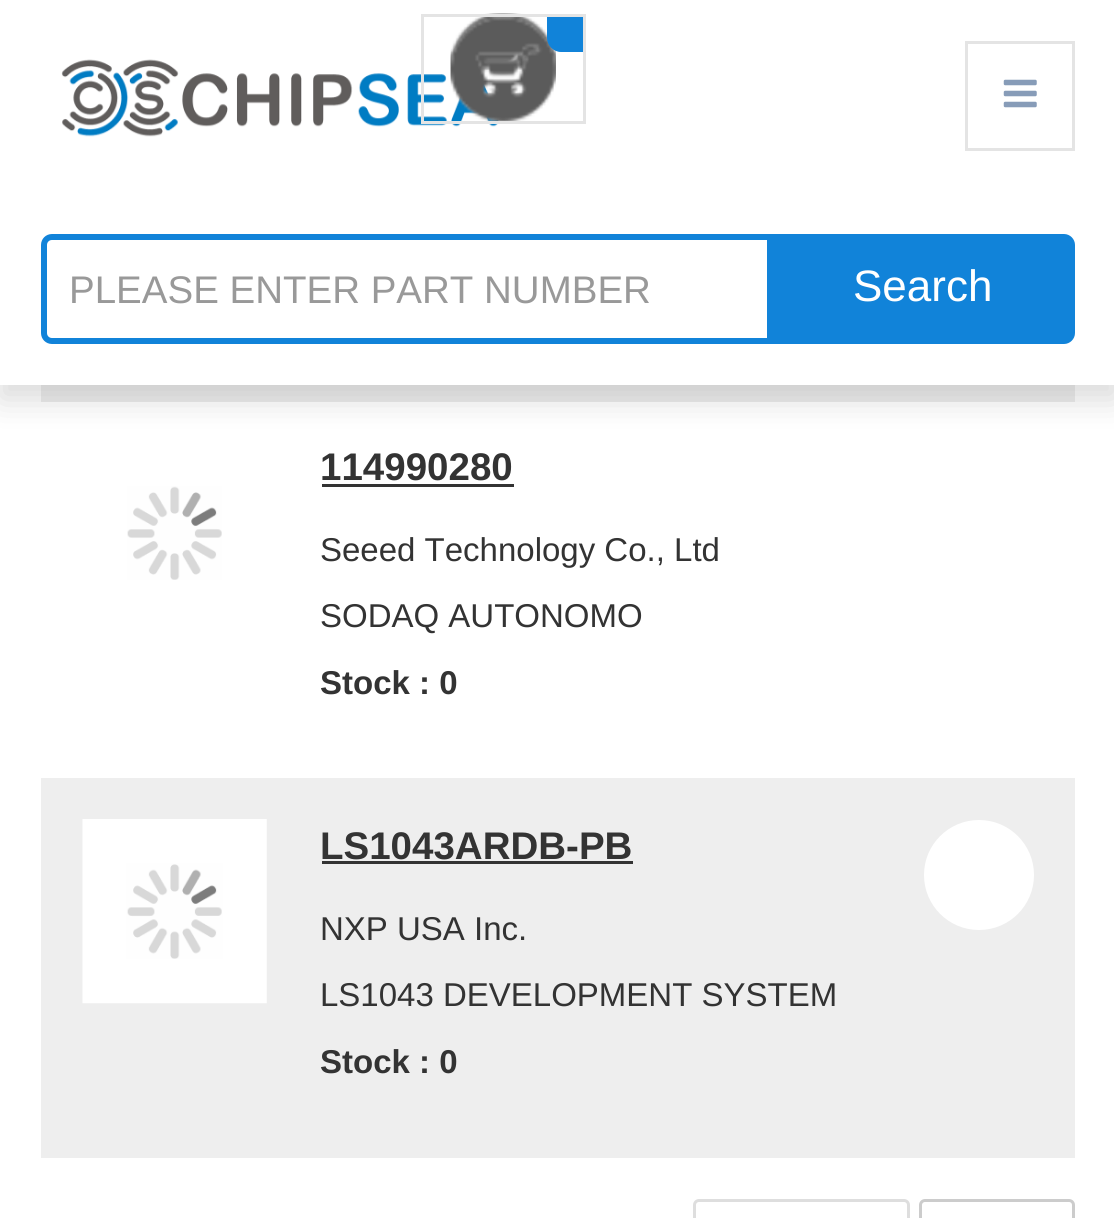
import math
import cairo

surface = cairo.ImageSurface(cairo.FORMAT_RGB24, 1114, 1218)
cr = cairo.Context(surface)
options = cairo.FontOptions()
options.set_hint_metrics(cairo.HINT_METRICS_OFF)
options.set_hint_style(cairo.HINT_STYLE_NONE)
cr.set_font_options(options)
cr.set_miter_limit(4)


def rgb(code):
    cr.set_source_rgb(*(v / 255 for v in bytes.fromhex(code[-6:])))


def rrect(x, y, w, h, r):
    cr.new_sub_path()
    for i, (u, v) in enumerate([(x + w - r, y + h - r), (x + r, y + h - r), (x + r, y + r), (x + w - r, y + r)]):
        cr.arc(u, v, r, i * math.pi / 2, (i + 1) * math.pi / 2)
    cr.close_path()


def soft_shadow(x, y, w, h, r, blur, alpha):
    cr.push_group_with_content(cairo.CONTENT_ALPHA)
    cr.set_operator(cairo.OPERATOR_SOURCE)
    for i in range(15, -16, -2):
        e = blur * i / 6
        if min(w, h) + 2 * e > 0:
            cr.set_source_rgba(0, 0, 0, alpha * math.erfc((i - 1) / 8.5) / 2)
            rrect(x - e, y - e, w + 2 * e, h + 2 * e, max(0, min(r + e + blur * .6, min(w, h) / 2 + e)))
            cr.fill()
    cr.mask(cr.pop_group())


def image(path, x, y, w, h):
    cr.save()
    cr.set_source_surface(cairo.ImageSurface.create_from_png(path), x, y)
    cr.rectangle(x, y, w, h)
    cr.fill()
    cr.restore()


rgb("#ffffff")
cr.paint()
rgb("#eeeeee")
cr.rectangle(41, 385, 1034, 17)
cr.fill()
rgb("#000000")
soft_shadow(0, 14, 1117, 385, 0, 16.5, 0.15)
rgb("#ffffff")
cr.rectangle(0, 0, 1114, 385)
cr.fill()
image("img/4.png", 61, 59, 438, 78)
image("img/1.png", 450, 13, 106, 106)
image("img/2.png", 450, 13, 106, 106)
image("img/3.png", 450, 17, 106, 104)
cr.rectangle(422.5, 15.5, 162, 107)
rgb("#e4e4e4")
cr.set_line_width(3)
cr.stroke()
rgb("#1183d9")
cr.new_path()
cr.move_to(547, 17)
cr.line_to(583, 17)
cr.line_to(583, 52)
cr.line_to(561, 52)
cr.curve_to(553.5, 52, 547, 45.5, 547, 38)
cr.close_path()
cr.fill()
cr.rectangle(966.5, 42.5, 107, 107)
rgb("#e4e4e4")
cr.stroke()
image("img/5.png", 1003, 79, 34, 29)
cr.new_path()
cr.move_to(52, 237)
cr.line_to(770, 237)
cr.line_to(770, 341)
cr.line_to(52, 341)
cr.curve_to(47.5, 341, 44, 337.5, 44, 333)
cr.line_to(44, 245)
cr.curve_to(44, 240.5, 47.5, 237, 52, 237)
cr.close_path()
rgb("#1183d9")
cr.set_line_width(6)
cr.stroke()
cr.new_path()
cr.move_to(770, 234)
cr.line_to(1064, 234)
cr.curve_to(1070, 234, 1075, 239, 1075, 245)
cr.line_to(1075, 333)
cr.curve_to(1075, 339, 1070, 344, 1064, 344)
cr.line_to(770, 344)
cr.close_path()
cr.fill()
image("img/6.png", 127, 486, 95, 94)
rgb("#333333")
cr.rectangle(322, 484, 192, 3)
cr.fill()
rgb("#eeeeee")
cr.rectangle(41, 778, 1034, 380)
cr.fill()
image("img/7.png", 82, 819, 185, 185)
rgb("#333333")
cr.rectangle(322, 861, 311, 3)
cr.fill()
rgb("#ffffff")
cr.arc(979, 875, 55, 0, 2 * math.pi)
cr.fill()
rrect(694.5, 1200.5, 214, 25, 4.5)
rgb("#dedede")
cr.set_line_width(3)
cr.stroke()
rrect(920.5, 1200.5, 153, 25, 4.5)
rgb("#cccccc")
cr.stroke()
cr.select_font_face("Liberation Sans")
cr.set_font_size(38.5)
rgb("#999999")
cr.move_to(69, 303)
cr.show_text("PLEASE ENTER PART NUMBER")
cr.set_font_size(44)
rgb("#ffffff")
cr.move_to(853, 301)
cr.show_text("Search")
cr.select_font_face("Liberation Sans", cairo.FONT_SLANT_NORMAL, cairo.FONT_WEIGHT_BOLD)
cr.set_font_size(38.5)
rgb("#333333")
cr.move_to(320, 480)
cr.show_text("114990280")
cr.select_font_face("Liberation Sans")
cr.set_font_size(33)
cr.move_to(320, 561)
cr.show_text("Seeed Technology Co., Ltd")
cr.move_to(320, 627)
cr.show_text("SODAQ AUTONOMO")
cr.select_font_face("Liberation Sans", cairo.FONT_SLANT_NORMAL, cairo.FONT_WEIGHT_BOLD)
cr.move_to(320, 694)
cr.show_text("Stock : 0")
cr.set_font_size(38.5)
cr.move_to(320, 859)
cr.show_text("LS1043ARDB-PB")
cr.select_font_face("Liberation Sans")
cr.set_font_size(33)
cr.move_to(320, 940)
cr.show_text("NXP USA Inc.")
cr.move_to(320, 1006)
cr.show_text("LS1043 DEVELOPMENT SYSTEM")
cr.select_font_face("Liberation Sans", cairo.FONT_SLANT_NORMAL, cairo.FONT_WEIGHT_BOLD)
cr.move_to(320, 1073)
cr.show_text("Stock : 0")
surface.write_to_png("page.png")
